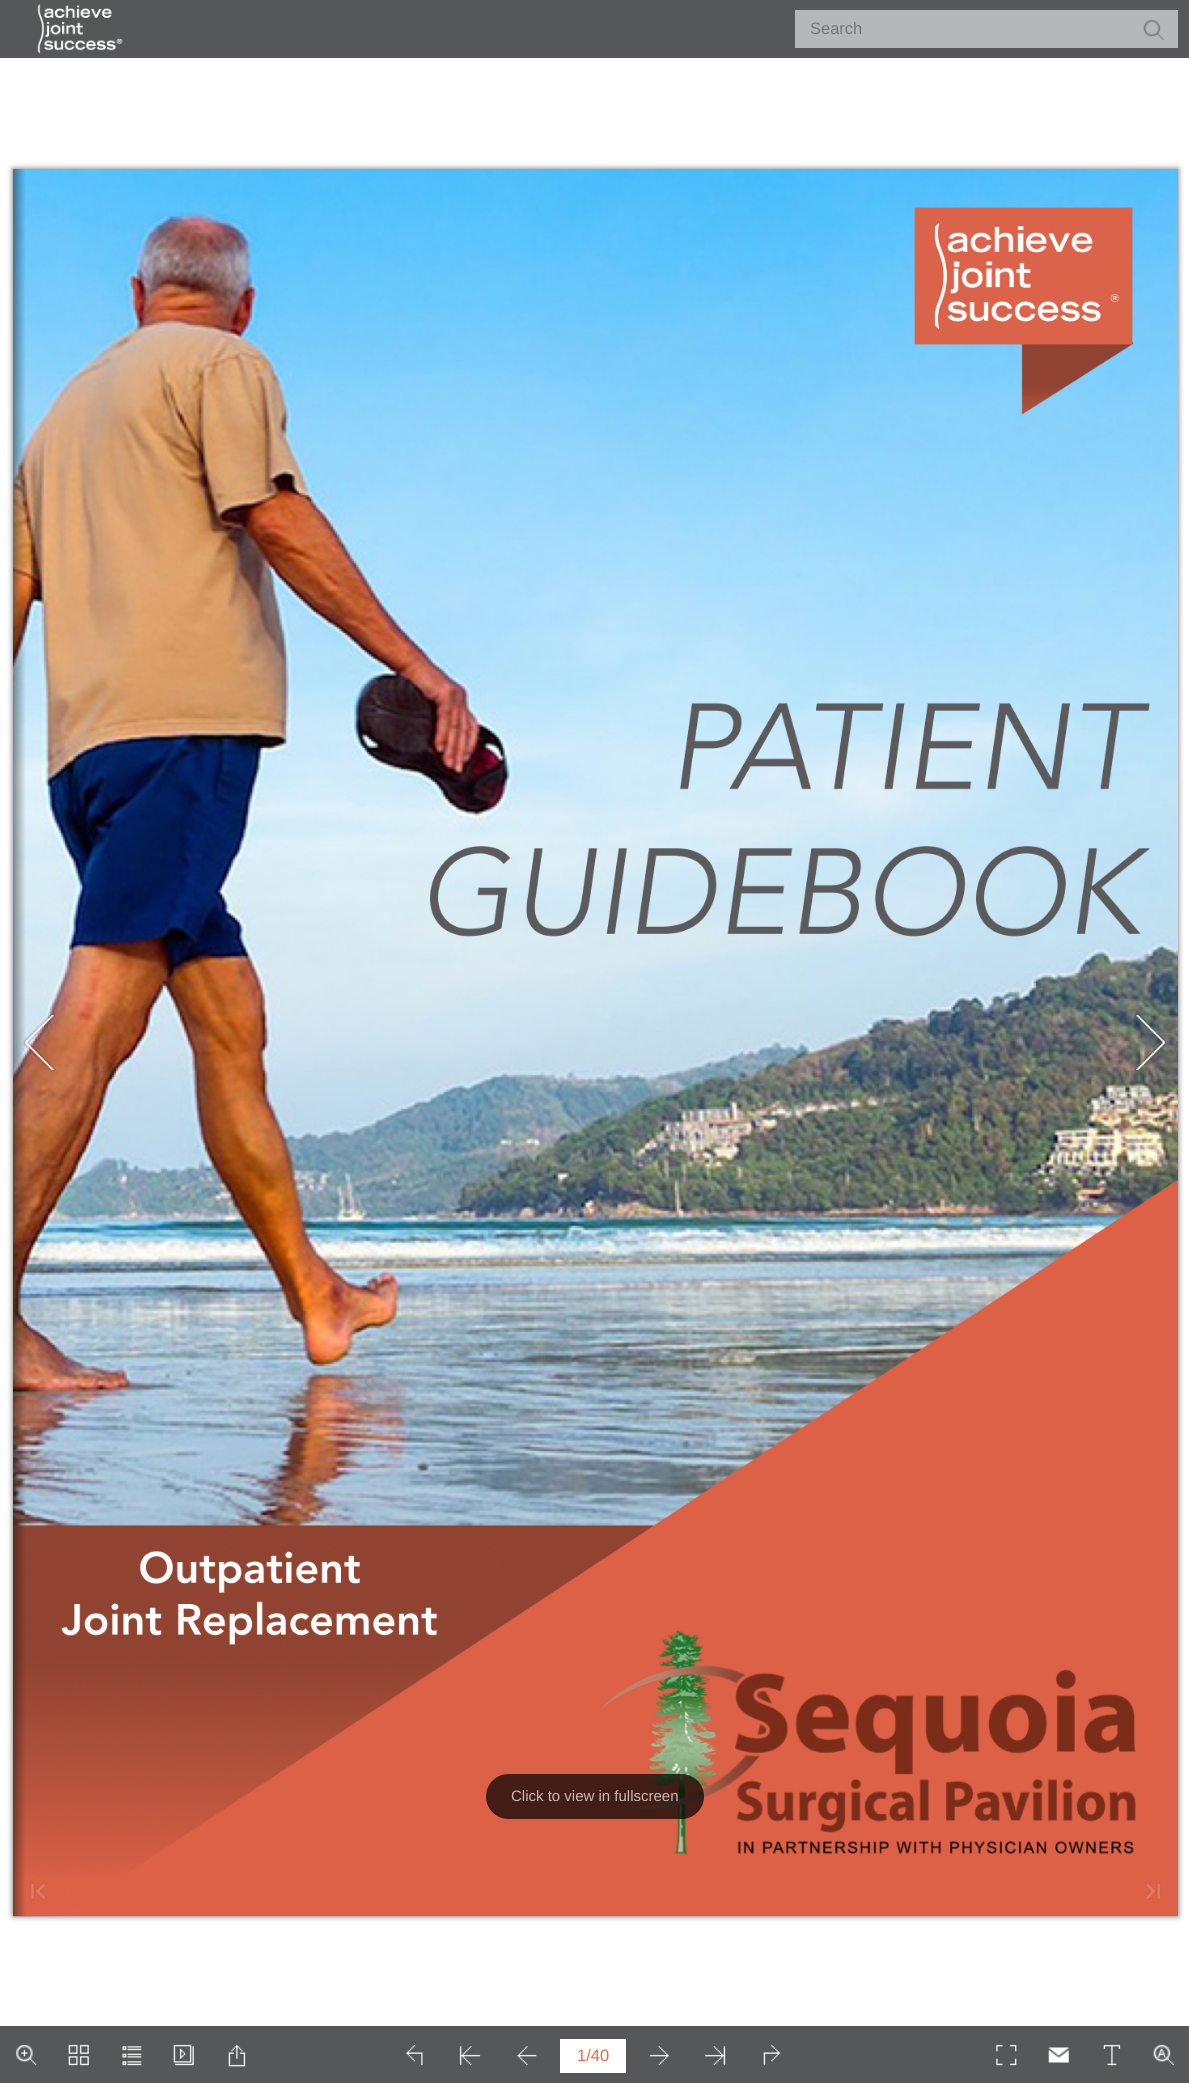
import math
import cairo

surface = cairo.ImageSurface(cairo.FORMAT_RGB24, 1189, 2083)
cr = cairo.Context(surface)
options = cairo.FontOptions()
options.set_hint_metrics(cairo.HINT_METRICS_OFF)
options.set_hint_style(cairo.HINT_STYLE_NONE)
cr.set_font_options(options)
cr.set_miter_limit(4)


def rgb(code):
    cr.set_source_rgb(*(v / 255 for v in bytes.fromhex(code[-6:])))


def rrect(x, y, w, h, r):
    cr.new_sub_path()
    for i, (u, v) in enumerate([(x + w - r, y + h - r), (x + r, y + h - r), (x + r, y + r), (x + w - r, y + r)]):
        cr.arc(u, v, r, i * math.pi / 2, (i + 1) * math.pi / 2)
    cr.close_path()


def soft_shadow(x, y, w, h, r, blur, alpha):
    cr.push_group_with_content(cairo.CONTENT_ALPHA)
    cr.set_operator(cairo.OPERATOR_SOURCE)
    for i in range(15, -16, -2):
        e = blur * i / 6
        if min(w, h) + 2 * e > 0:
            cr.set_source_rgba(0, 0, 0, alpha * math.erfc((i - 1) / 8.5) / 2)
            rrect(x - e, y - e, w + 2 * e, h + 2 * e, max(0, min(r + e + blur * .6, min(w, h) / 2 + e)))
            cr.fill()
    cr.mask(cr.pop_group())


def image(path, x, y, w, h):
    cr.save()
    cr.set_source_surface(cairo.ImageSurface.create_from_png(path), x, y)
    cr.rectangle(x, y, w, h)
    cr.fill()
    cr.restore()


rgb("#ffffff")
cr.paint()
rgb("#555759")
cr.rectangle(0, 0, 1189, 58)
cr.fill()
image("img/1.png", 37, 3, 86, 51)
rgb("#b5b7b9")
cr.rectangle(795, 10, 383, 38)
cr.fill()
image("img/2.png", 1143, 19, 21, 22)
rgb("#282828")
soft_shadow(13, 169, 1165, 1747, 0, 3, 0.7)
image("img/5.png", 13, 169, 1165, 1747)
image("img/3.png", 23, 1013, 33, 59)
image("img/4.png", 1135, 1013, 32, 59)
image("img/6.png", 13, 1916, 49, 1)
image("img/7.png", 13, 1916, 1165, 1)
cr.set_source_rgba(0, 0, 0, 0.7)
rrect(486, 1774, 218, 45, 22.5)
cr.fill()
image("img/8.png", 30, 1882, 16, 18)
image("img/9.png", 1145, 1882, 16, 18)
rgb("#555759")
cr.rectangle(0, 2026, 1189, 57)
cr.fill()
image("img/10.png", 16, 2044, 21, 22)
image("img/11.png", 68, 2044, 21, 22)
image("img/12.png", 122, 2046, 20, 20)
image("img/13.png", 173, 2044, 21, 22)
image("img/14.png", 228, 2044, 18, 23)
image("img/15.png", 406, 2044, 17, 22)
image("img/16.png", 459, 2046, 22, 20)
image("img/17.png", 517, 2046, 20, 20)
rgb("#ffffff")
cr.rectangle(560, 2039, 66, 34)
cr.fill()
image("img/18.png", 649, 2046, 20, 20)
image("img/19.png", 704, 2046, 22, 20)
image("img/20.png", 763, 2044, 18, 22)
image("img/21.png", 996, 2044, 21, 22)
image("img/22.png", 1048, 2047, 21, 16)
image("img/23.png", 1103, 2044, 18, 22)
image("img/24.png", 1153, 2044, 21, 22)
cr.select_font_face("Liberation Sans")
cr.set_font_size(16.5)
rgb("#757575")
cr.move_to(810, 34)
cr.show_text("Search")
cr.set_font_size(15)
rgb("#c6bbb9")
cr.move_to(511, 1801)
cr.show_text("Click to view in fullscreen")
cr.set_font_size(16.5)
rgb("#ea6847")
cr.move_to(577, 2061)
cr.show_text("1/40")
surface.write_to_png("page.png")
